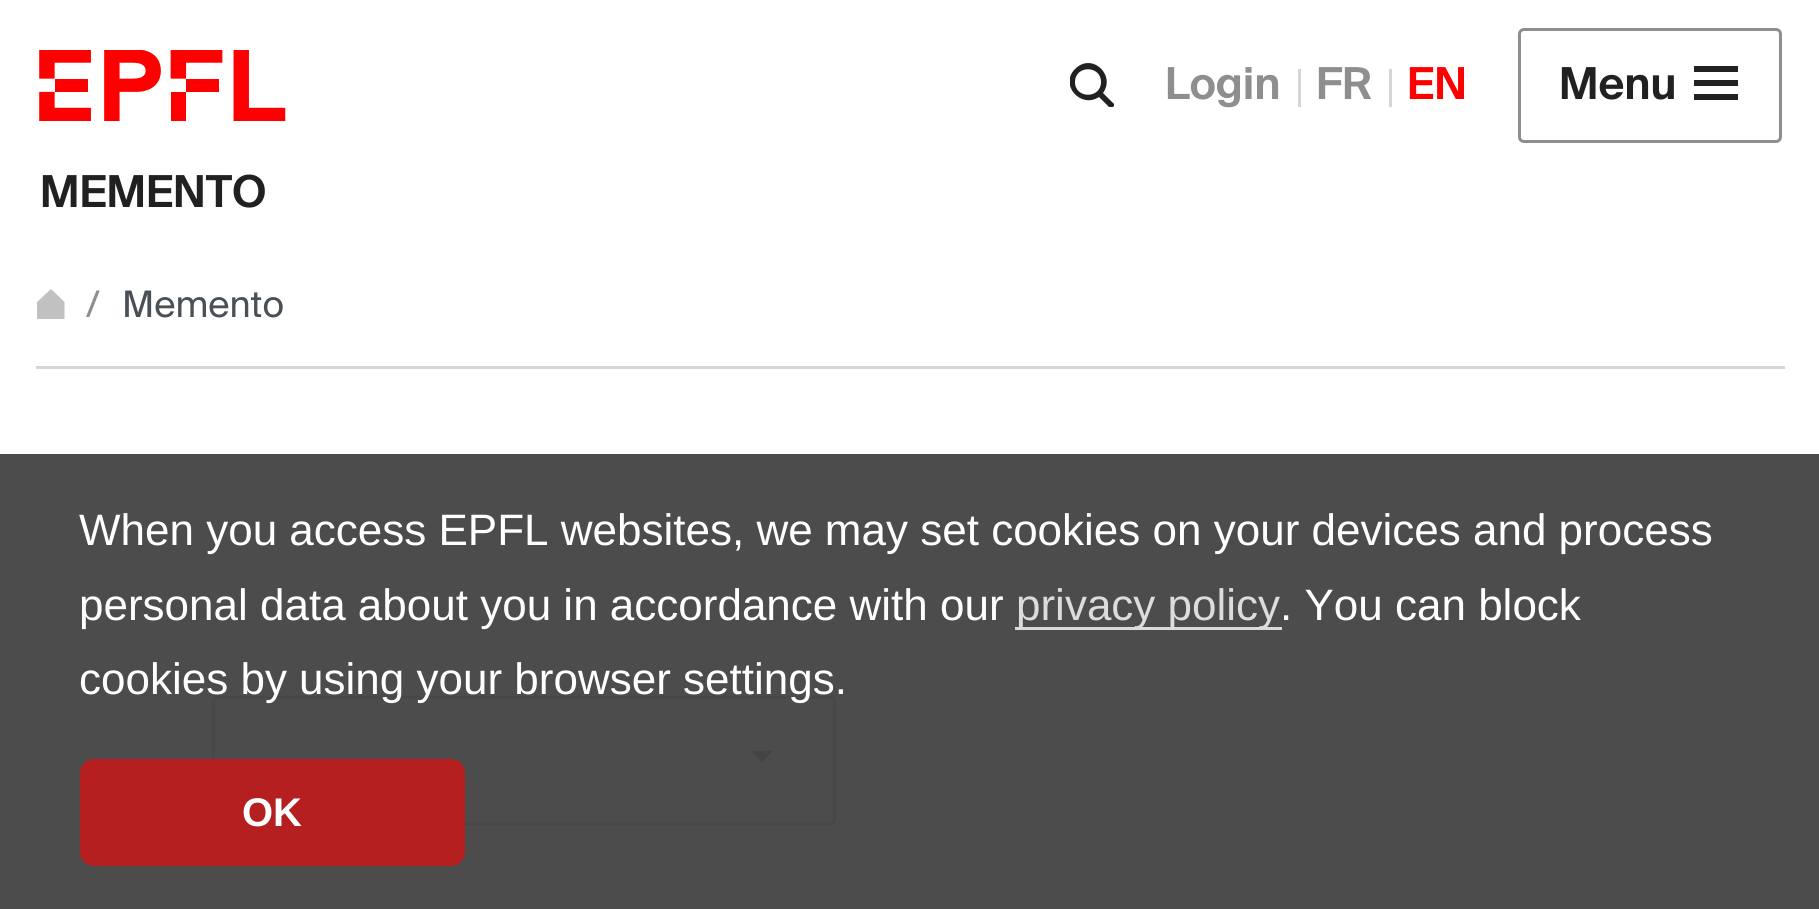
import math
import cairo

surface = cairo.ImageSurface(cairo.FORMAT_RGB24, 1819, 909)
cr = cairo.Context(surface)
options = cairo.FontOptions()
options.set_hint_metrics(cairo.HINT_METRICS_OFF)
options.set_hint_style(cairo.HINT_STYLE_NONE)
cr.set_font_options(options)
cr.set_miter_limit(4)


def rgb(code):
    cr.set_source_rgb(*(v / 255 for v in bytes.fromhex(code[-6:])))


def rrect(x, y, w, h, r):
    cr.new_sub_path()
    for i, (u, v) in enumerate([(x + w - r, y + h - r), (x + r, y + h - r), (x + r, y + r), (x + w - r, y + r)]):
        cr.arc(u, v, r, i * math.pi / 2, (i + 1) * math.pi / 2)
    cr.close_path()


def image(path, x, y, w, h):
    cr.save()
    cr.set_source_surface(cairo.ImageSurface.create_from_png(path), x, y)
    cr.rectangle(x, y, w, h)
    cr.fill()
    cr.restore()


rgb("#ffffff")
cr.paint()
rgb("#4c4c4c")
cr.rectangle(0, 454, 1819, 455)
cr.fill()
image("img/1.png", 39, 50, 247, 71)
cr.save()
cr.rectangle(1070, 63, 44, 44)
cr.clip()
rgb("#212121")
cr.new_path()
cr.move_to(1115, 105)
cr.line_to(1103, 93)
cr.curve_to(1116, 75, 1092, 52, 1075, 69)
cr.curve_to(1059, 85, 1081, 109, 1099, 97)
cr.line_to(1111, 109)
cr.close_path()
cr.move_to(1075, 82)
cr.curve_to(1075, 65, 1101, 65, 1101, 82)
cr.curve_to(1101, 99, 1075, 99, 1075, 82)
cr.close_path()
cr.fill()
cr.restore()
rgb("#d5d5d5")
cr.rectangle(1298, 69, 3, 38)
cr.fill()
cr.rectangle(1389, 69, 3, 38)
cr.fill()
rrect(1519.5, 29.5, 261, 112, 4.5)
rgb("#8e8e8e")
cr.set_line_width(3)
cr.stroke()
for x, y, w, h, color in [
    (1694, 66, 44, 6, "#212121"),
    (1694, 80, 44, 6, "#212121"),
    (1694, 94, 44, 6, "#212121"),
    (36, 366, 1749, 3, "#d5d5d5"),
]:
    rgb(color)
    cr.rectangle(x, y, w, h)
    cr.fill()
cr.save()
cr.rectangle(36, 289, 30, 30)
cr.clip()
rgb("#c1c1c1")
cr.set_fill_rule(cairo.FILL_RULE_EVEN_ODD)
cr.new_path()
cr.move_to(37, 302)
cr.line_to(51, 289)
cr.line_to(64.5, 302)
cr.line_to(64.5, 320)
cr.line_to(37, 320)
cr.close_path()
cr.fill()
cr.restore()
rrect(213.5, 697.5, 621, 126, 4.5)
rgb("#484848")
cr.stroke()
rgb("#444444")
cr.new_path()
cr.move_to(751, 751)
cr.line_to(773, 751)
cr.line_to(762, 762)
cr.close_path()
cr.fill()
rgb("#dbdbdb")
cr.rectangle(1015, 627, 267, 3)
cr.fill()
rgb("#b51f1f")
rrect(80, 759, 385, 107, 14)
cr.fill()
cr.select_font_face("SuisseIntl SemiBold")
cr.set_font_size(44)
rgb("#8e8e8e")
cr.move_to(1165, 99)
cr.show_text("Login")
cr.move_to(1316, 99)
cr.show_text("FR")
rgb("#ff0000")
cr.move_to(1407, 99)
cr.show_text("EN")
rgb("#212121")
cr.move_to(1559, 99)
cr.show_text("Menu")
cr.move_to(40, 207)
cr.show_text("MEMENTO")
cr.select_font_face("SuisseIntl")
cr.set_font_size(36.5)
rgb("#8e8e8e")
cr.move_to(86, 317)
cr.show_text("/")
rgb("#495057")
cr.move_to(122, 317)
cr.show_text("Memento")
cr.select_font_face("Liberation Sans")
cr.set_font_size(44)
rgb("#ffffff")
cr.move_to(79, 545)
cr.show_text("When you access EPFL websites, we may set cookies on your devices and process")
cr.move_to(79, 620)
cr.show_text("personal data about you in accordance with our")
rgb("#dcdcdc")
cr.move_to(1016, 620)
cr.show_text("privacy policy")
rgb("#ffffff")
cr.move_to(1280, 620)
cr.show_text(". You can block")
cr.move_to(79, 694)
cr.show_text("cookies by using your browser settings.")
cr.select_font_face("Liberation Sans", cairo.FONT_SLANT_NORMAL, cairo.FONT_WEIGHT_BOLD)
cr.set_font_size(40)
cr.move_to(242, 826)
cr.show_text("OK")
surface.write_to_png("page.png")
